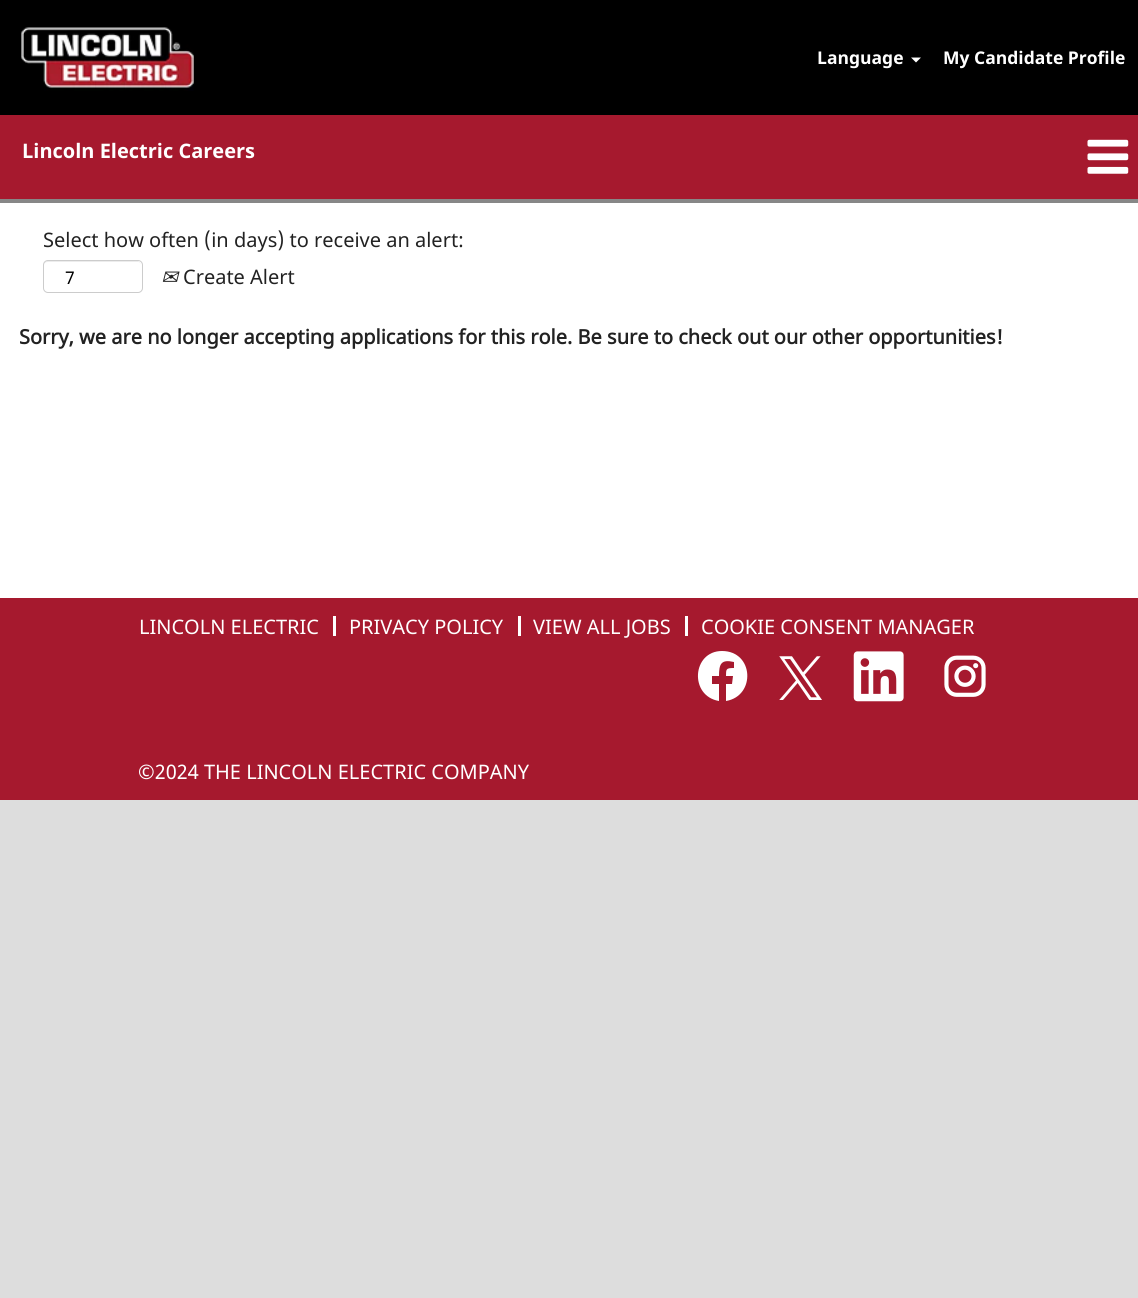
import math
import cairo

surface = cairo.ImageSurface(cairo.FORMAT_RGB24, 1138, 1298)
cr = cairo.Context(surface)
options = cairo.FontOptions()
options.set_hint_metrics(cairo.HINT_METRICS_OFF)
options.set_hint_style(cairo.HINT_STYLE_NONE)
cr.set_font_options(options)
cr.set_miter_limit(4)


def rgb(code):
    cr.set_source_rgb(*(v / 255 for v in bytes.fromhex(code[-6:])))


def rrect(x, y, w, h, r):
    cr.new_sub_path()
    for i, (u, v) in enumerate([(x + w - r, y + h - r), (x + r, y + h - r), (x + r, y + r), (x + w - r, y + r)]):
        cr.arc(u, v, r, i * math.pi / 2, (i + 1) * math.pi / 2)
    cr.close_path()


def image(path, x, y, w, h):
    cr.save()
    cr.set_source_surface(cairo.ImageSurface.create_from_png(path), x, y)
    cr.rectangle(x, y, w, h)
    cr.fill()
    cr.restore()


rgb("#dddddd")
cr.paint()
rgb("#000000")
cr.rectangle(0, 0, 1138, 115)
cr.fill()
image("img/1.png", 21, 27, 173, 64)
rgb("#ffffff")
cr.new_path()
cr.move_to(911, 57.5)
cr.line_to(921, 57.5)
cr.line_to(916, 62.5)
cr.close_path()
cr.fill()
rgb("#a6192e")
cr.rectangle(0, 115, 1138, 84)
cr.fill()
image("img/2.png", 1087, 139, 42, 35)
rgb("#ffffff")
cr.rectangle(0, 203, 1138, 395)
cr.fill()
rgb("#878787")
cr.rectangle(0, 199, 1138, 4)
cr.fill()
rgb("#ececec")
cr.new_path()
cr.move_to(48, 262)
cr.line_to(138, 262)
cr.curve_to(140, 262, 141, 264, 141, 266)
cr.curve_to(141, 257, 127, 261, 122, 261)
cr.line_to(63, 261)
cr.curve_to(58, 261, 44, 257, 44, 266)
cr.curve_to(44, 264, 45, 262, 48, 262)
cr.close_path()
cr.fill()
rrect(43.5, 260.5, 99, 32, 4.5)
rgb("#cccccc")
cr.set_line_width(1)
cr.stroke()
for x, y, w, h, color in [
    (0, 598, 1138, 202, "#a6192e"),
    (333, 616, 3, 20, "#ffffff"),
    (518, 616, 3, 20, "#ffffff"),
    (685, 616, 3, 20, "#ffffff"),
]:
    rgb(color)
    cr.rectangle(x, y, w, h)
    cr.fill()
cr.new_path()
cr.move_to(722, 651)
cr.curve_to(692, 651, 689, 696, 719, 701)
cr.line_to(719, 684)
cr.line_to(712, 684)
cr.line_to(712, 676)
cr.line_to(719, 676)
cr.curve_to(719, 664, 721, 659, 734, 662)
cr.line_to(734, 668)
cr.curve_to(726, 668, 726, 669, 726, 676)
cr.line_to(733, 676)
cr.line_to(732, 684)
cr.line_to(726, 684)
cr.line_to(726, 701)
cr.curve_to(756, 696, 754, 651, 722, 651)
cr.close_path()
cr.fill()
image("img/3.png", 779, 656, 43, 44)
image("img/4.png", 853, 651, 51, 51)
image("img/5.png", 944, 655, 42, 42)
cr.select_font_face("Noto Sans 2", cairo.FONT_SLANT_NORMAL, cairo.FONT_WEIGHT_BOLD)
cr.set_font_size(17.5)
cr.move_to(817, 64)
cr.show_text("Language")
cr.move_to(943, 64)
cr.show_text("My Candidate Profile")
cr.set_font_size(20)
cr.move_to(22, 158)
cr.show_text("Lincoln Electric Careers")
cr.select_font_face("Noto Sans")
rgb("#222222")
cr.move_to(43, 247)
cr.show_text("Select how often (in days) to receive an alert:")
cr.set_font_size(17.5)
rgb("#000000")
cr.move_to(65, 284)
cr.show_text("7")
cr.select_font_face("DejaVu Sans", cairo.FONT_SLANT_ITALIC)
cr.set_font_size(20)
rgb("#222222")
cr.move_to(161, 284)
cr.show_text("✉")
cr.select_font_face("Noto Sans")
cr.move_to(183, 284)
cr.show_text("Create Alert")
cr.select_font_face("Noto Sans", cairo.FONT_SLANT_NORMAL, cairo.FONT_WEIGHT_BOLD)
cr.move_to(19, 344)
cr.show_text("Sorry, we are no longer accepting applications for this role. Be sure to check out our other opportunities!")
cr.select_font_face("Noto Sans")
rgb("#ffffff")
for x, y, s in [
    (139, 634, "LINCOLN ELECTRIC"),
    (349, 634, "PRIVACY POLICY"),
    (533, 634, "VIEW ALL JOBS"),
    (701, 634, "COOKIE CONSENT MANAGER"),
    (138, 779, "©2024 THE LINCOLN ELECTRIC COMPANY"),
]:
    cr.move_to(x, y)
    cr.show_text(s)
surface.write_to_png("page.png")
